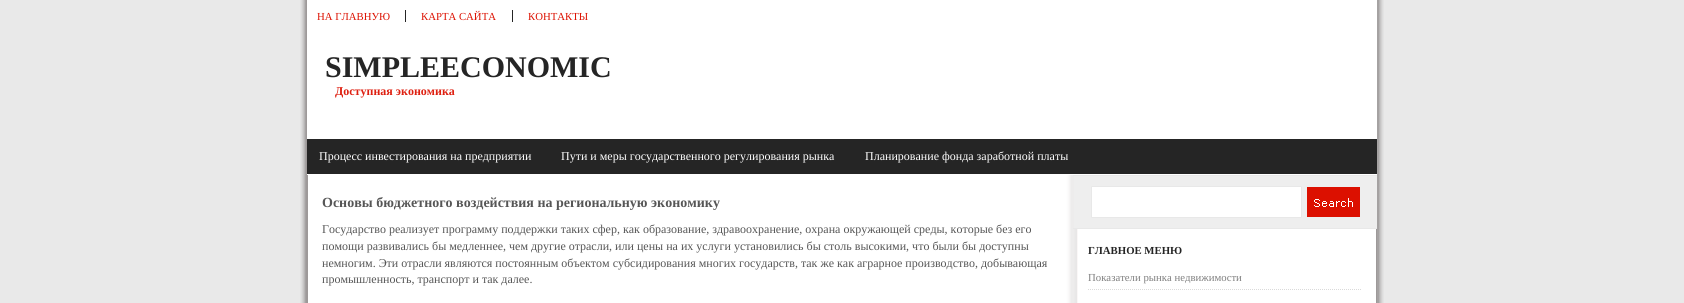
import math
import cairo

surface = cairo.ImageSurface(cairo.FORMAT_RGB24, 1684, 303)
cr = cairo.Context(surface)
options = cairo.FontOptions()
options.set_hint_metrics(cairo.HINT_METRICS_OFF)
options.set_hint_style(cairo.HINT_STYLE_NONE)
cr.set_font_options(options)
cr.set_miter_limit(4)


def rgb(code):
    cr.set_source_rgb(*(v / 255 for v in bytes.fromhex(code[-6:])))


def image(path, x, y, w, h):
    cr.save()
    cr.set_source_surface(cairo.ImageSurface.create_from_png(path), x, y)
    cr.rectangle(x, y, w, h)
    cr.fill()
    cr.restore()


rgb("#e9e9e9")
cr.paint()
image("img/1.png", 300, 0, 1084, 303)
for x, y, w, h, color in [
    (307, 0, 1070, 175, "#ffffff"),
    (405, 10, 1, 12, "#252525"),
    (512, 10, 1, 12, "#252525"),
    (307, 139, 1070, 35, "#252525"),
    (1074, 176, 303, 52, "#eeeeee"),
]:
    rgb(color)
    cr.rectangle(x, y, w, h)
    cr.fill()
image("img/2.png", 1091, 186, 269, 32)
rgb("#e8e8e8")
cr.rectangle(1073, 175, 304, 1)
cr.fill()
cr.rectangle(1073, 228, 304, 1)
cr.fill()
cr.new_path()
cr.move_to(1088, 289.5)
cr.line_to(1362, 289.5)
rgb("#dadada")
cr.set_line_width(1)
cr.set_dash([1, 1])
cr.stroke()
cr.select_font_face("Liberation Serif")
cr.set_font_size(10.75)
rgb("#dc1000")
for x, y, s in [
    (317, 20, "НА ГЛАВНУЮ"),
    (421, 20, "КАРТА САЙТА"),
    (528, 20, "КОНТАКТЫ"),
]:
    cr.move_to(x, y)
    cr.show_text(s)
cr.select_font_face("Liberation Serif", cairo.FONT_SLANT_NORMAL, cairo.FONT_WEIGHT_BOLD)
cr.set_font_size(30)
rgb("#252525")
cr.move_to(325, 77)
cr.show_text("SIMPLEECONOMIC")
cr.set_font_size(12)
rgb("#de2011")
cr.move_to(335, 95)
cr.show_text("Доступная экономика")
cr.select_font_face("Liberation Serif")
rgb("#ffffff")
for x, y, s in [
    (319, 160, "Процесс инвестирования на предприятии"),
    (561, 160, "Пути и меры государственного регулирования рынка"),
    (865, 160, "Планирование фонда заработной платы"),
]:
    cr.move_to(x, y)
    cr.show_text(s)
cr.select_font_face("Liberation Serif", cairo.FONT_SLANT_NORMAL, cairo.FONT_WEIGHT_BOLD)
cr.set_font_size(14)
rgb("#565656")
cr.move_to(322, 207)
cr.show_text("Основы бюджетного воздействия на региональную экономику")
cr.select_font_face("Liberation Serif")
cr.set_font_size(12)
for x, y, s in [
    (322, 233, "Государство реализует программу поддержки таких сфер, как образование, здравоохранение, охрана окружающей среды, которые без его"),
    (322, 250, "помощи развивались бы медленнее, чем другие отрасли, или цены на их услуги установились бы столь высокими, что были бы доступны"),
    (322, 267, "немногим. Эти отрасли являются постоянным объектом субсидирования многих государств, так же как аграрное производство, добывающая"),
    (322, 283, "промышленность, транспорт и так далее."),
]:
    cr.move_to(x, y)
    cr.show_text(s)
cr.select_font_face("Liberation Serif", cairo.FONT_SLANT_NORMAL, cairo.FONT_WEIGHT_BOLD)
cr.set_font_size(10.75)
rgb("#252525")
cr.move_to(1088, 254)
cr.show_text("ГЛАВНОЕ МЕНЮ")
cr.select_font_face("Liberation Serif")
rgb("#808080")
cr.move_to(1088, 281)
cr.show_text("Показатели рынка недвижимости")
surface.write_to_png("page.png")
